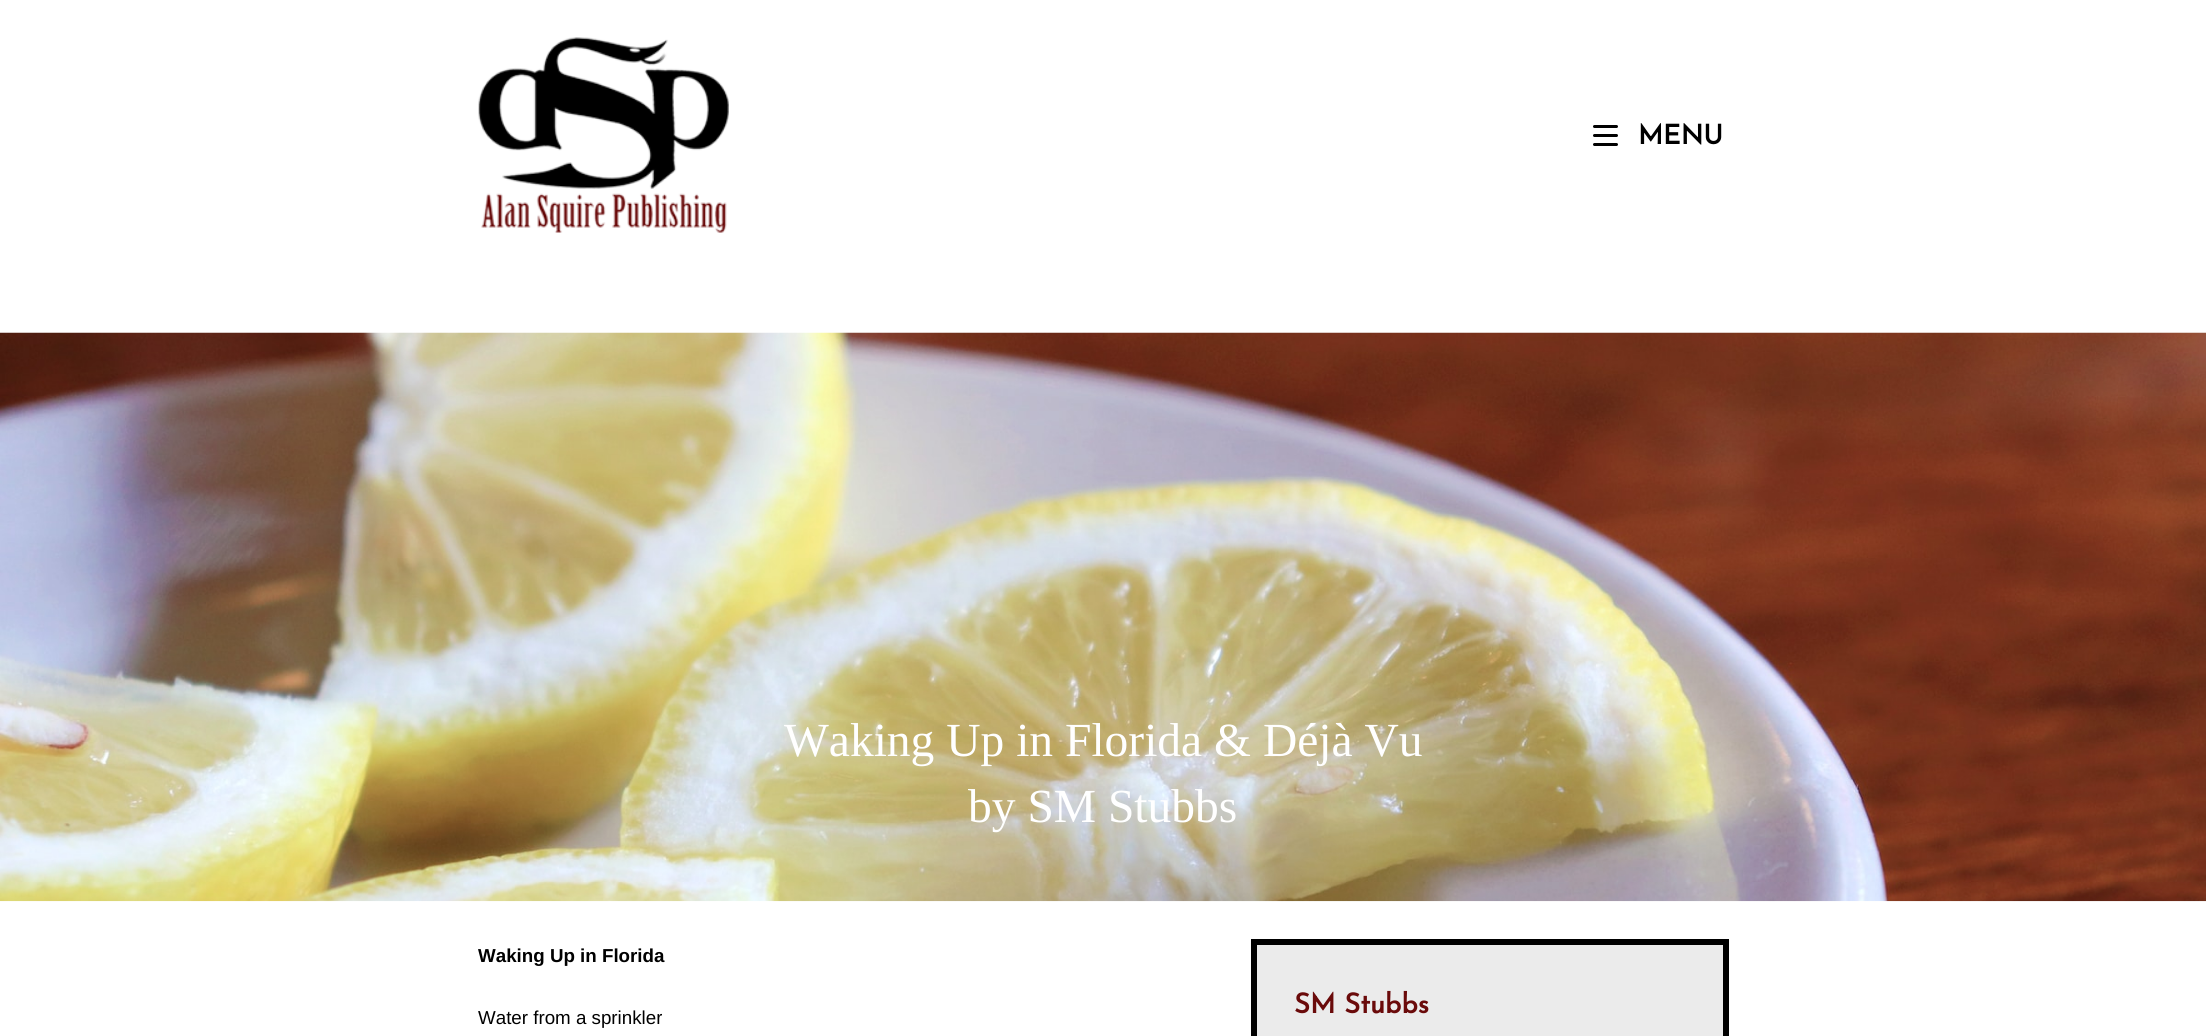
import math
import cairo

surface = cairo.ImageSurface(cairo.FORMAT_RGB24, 2206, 1036)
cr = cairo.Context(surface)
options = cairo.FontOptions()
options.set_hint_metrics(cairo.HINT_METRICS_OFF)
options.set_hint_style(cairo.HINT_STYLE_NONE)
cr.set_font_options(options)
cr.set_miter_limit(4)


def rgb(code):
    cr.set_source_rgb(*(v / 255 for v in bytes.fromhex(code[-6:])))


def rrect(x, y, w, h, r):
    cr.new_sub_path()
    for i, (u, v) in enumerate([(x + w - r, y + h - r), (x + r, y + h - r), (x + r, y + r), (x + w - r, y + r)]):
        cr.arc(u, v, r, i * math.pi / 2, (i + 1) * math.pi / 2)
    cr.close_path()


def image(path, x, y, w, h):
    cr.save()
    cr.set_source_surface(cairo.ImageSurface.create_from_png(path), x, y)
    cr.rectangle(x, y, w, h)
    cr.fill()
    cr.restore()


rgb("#ffffff")
cr.paint()
image("img/1.png", 478, 37, 251, 196)
rgb("#000000")
rrect(1593, 125, 25, 3, 1.5)
cr.fill()
rrect(1593, 134, 25, 3, 1.5)
cr.fill()
rrect(1593, 143, 25, 3, 1.5)
cr.fill()
image("img/2.png", 0, 332, 2206, 570)
rgb("#ebebeb")
cr.rectangle(1254, 942, 472, 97)
cr.fill_preserve()
rgb("#000000")
cr.set_line_width(6)
cr.stroke()
cr.select_font_face("Josefin Sans", cairo.FONT_SLANT_NORMAL, cairo.FONT_WEIGHT_BOLD)
cr.set_font_size(27)
cr.move_to(1638, 144)
cr.show_text("MENU")
cr.select_font_face("Liberation Serif")
cr.set_font_size(47.5)
rgb("#ffffff")
cr.move_to(784, 756)
cr.show_text("Waking Up in Florida & Déjà Vu")
cr.move_to(968, 822)
cr.show_text("by SM Stubbs")
cr.select_font_face("Liberation Sans", cairo.FONT_SLANT_NORMAL, cairo.FONT_WEIGHT_BOLD)
cr.set_font_size(18.75)
rgb("#000000")
cr.move_to(478, 962)
cr.show_text("Waking Up in Florida")
cr.select_font_face("Liberation Sans")
cr.move_to(478, 1024)
cr.show_text("Water from a sprinkler")
cr.select_font_face("Josefin Sans", cairo.FONT_SLANT_NORMAL, cairo.FONT_WEIGHT_BOLD)
cr.set_font_size(27.5)
rgb("#6a0a0a")
cr.move_to(1294, 1013)
cr.show_text("SM Stubbs")
surface.write_to_png("page.png")
